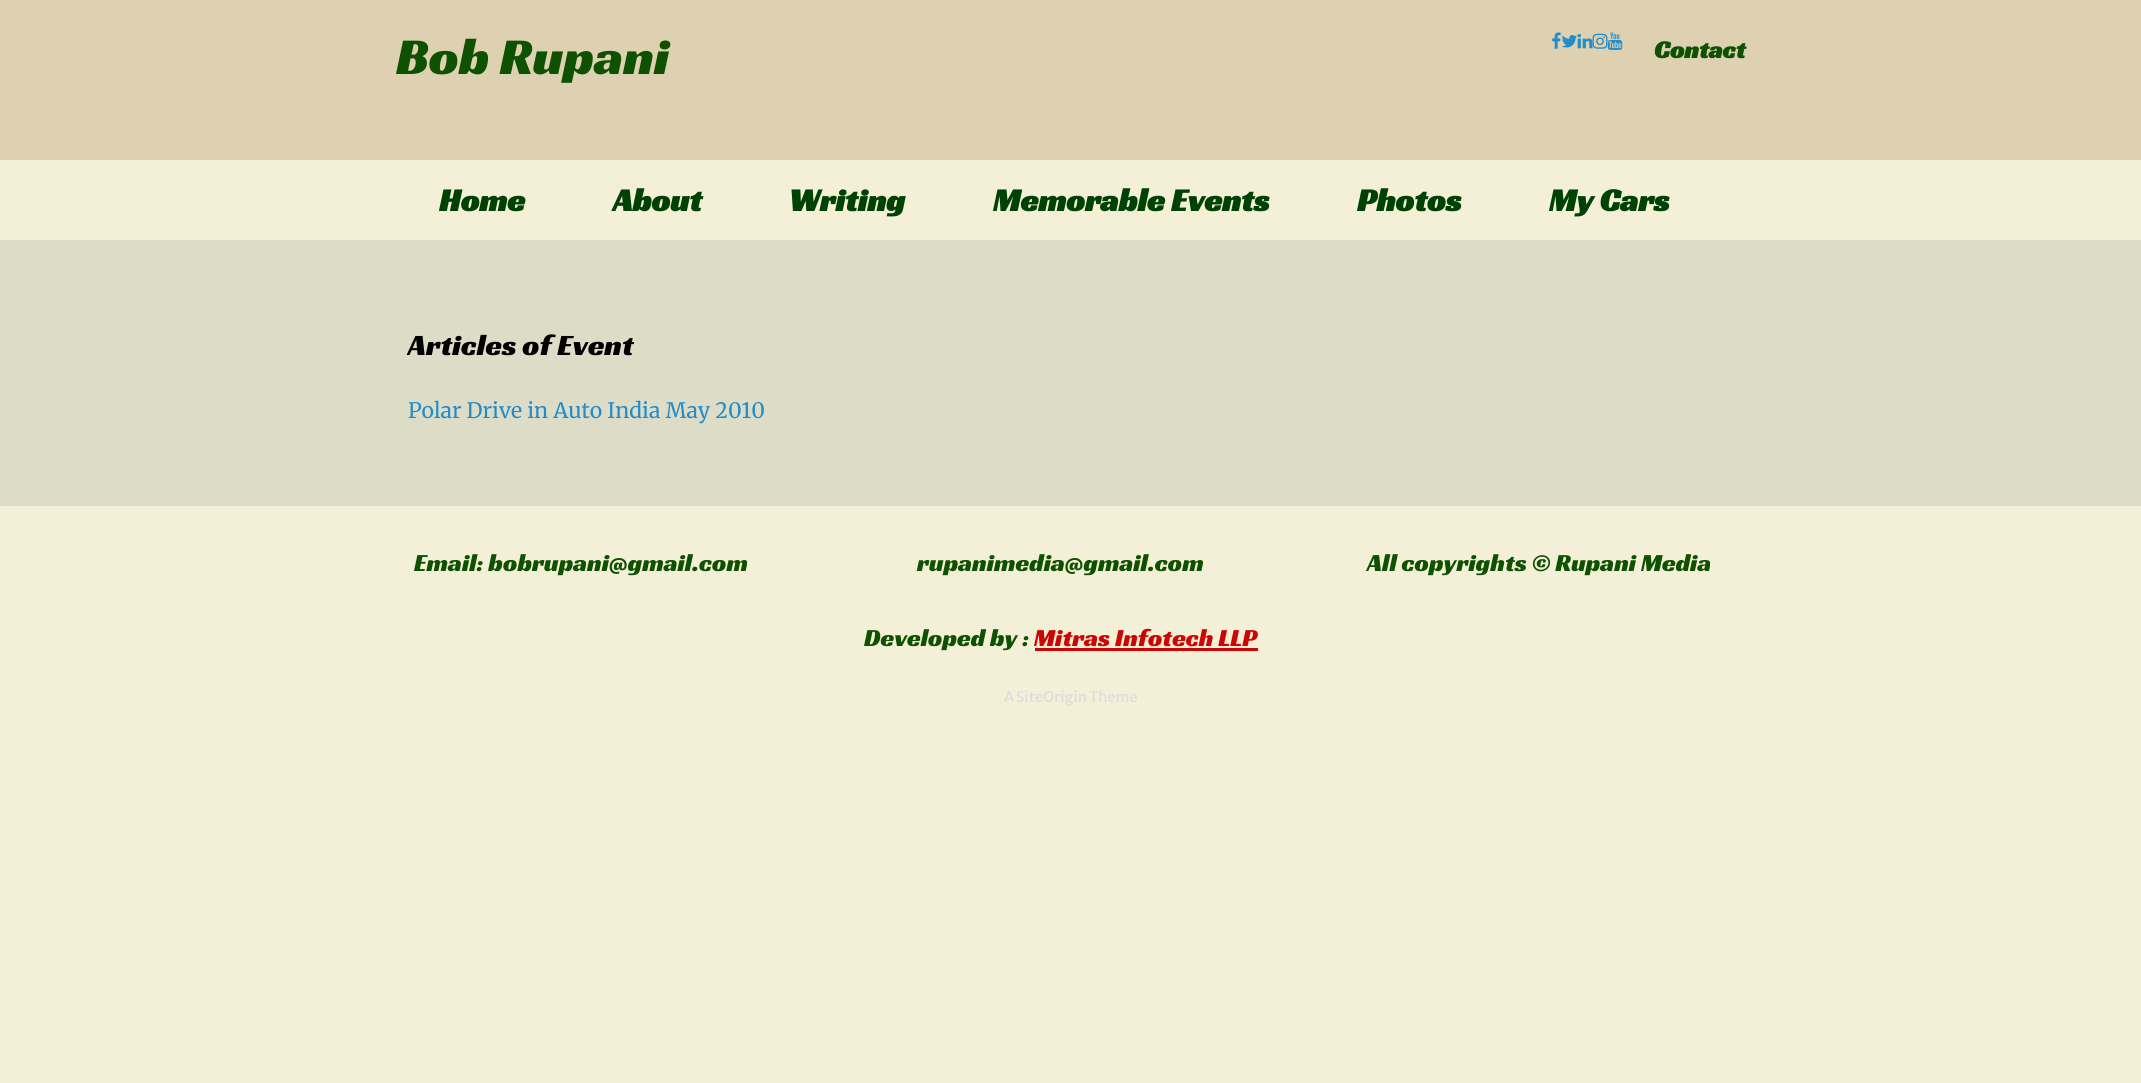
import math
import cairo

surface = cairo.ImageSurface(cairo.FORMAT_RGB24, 2141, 1083)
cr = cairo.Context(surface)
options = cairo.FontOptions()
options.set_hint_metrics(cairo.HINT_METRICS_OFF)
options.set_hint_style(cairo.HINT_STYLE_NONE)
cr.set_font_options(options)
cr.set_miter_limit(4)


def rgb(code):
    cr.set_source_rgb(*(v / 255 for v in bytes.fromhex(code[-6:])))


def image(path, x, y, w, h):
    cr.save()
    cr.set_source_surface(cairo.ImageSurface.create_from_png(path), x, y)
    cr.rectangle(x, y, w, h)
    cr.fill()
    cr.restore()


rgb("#f4efd7")
cr.paint()
rgb("#ddd1b1")
cr.rectangle(0, 0, 2141, 160)
cr.fill()
image("img/1.png", 1552, 32, 9, 17)
image("img/2.png", 1561, 35, 16, 13)
image("img/3.png", 1577, 34, 16, 15)
image("img/4.png", 1592, 33, 16, 16)
image("img/5.png", 1607, 32, 16, 18)
rgb("#ddddc7")
cr.rectangle(0, 240, 2141, 266)
cr.fill()
rgb("#cc0404")
cr.rectangle(1035, 648, 223, 3)
cr.fill()
cr.select_font_face("Racing Sans One")
cr.set_font_size(52.5)
rgb("#0e5100")
cr.move_to(396, 74)
cr.show_text("Bob Rupani")
cr.select_font_face("Racing Sans One", cairo.FONT_SLANT_NORMAL, cairo.FONT_WEIGHT_BOLD)
cr.set_font_size(25)
cr.move_to(1654, 58)
cr.show_text("Contact")
cr.set_font_size(32.5)
rgb("#004203")
for x, y, s in [
    (439, 211, "Home"),
    (613, 211, "About"),
    (789, 211, "Writing"),
    (993, 211, "Memorable Events"),
    (1357, 211, "Photos"),
    (1549, 211, "My Cars"),
]:
    cr.move_to(x, y)
    cr.show_text(s)
cr.select_font_face("Racing Sans One")
cr.set_font_size(30)
rgb("#000000")
cr.move_to(408, 355)
cr.show_text("Articles of Event")
cr.select_font_face("Merriweather")
cr.set_font_size(21.25)
rgb("#248cc8")
cr.move_to(408, 418)
cr.show_text("Polar Drive in Auto India May 2010")
cr.select_font_face("Racing Sans One")
cr.set_font_size(25)
rgb("#0e5100")
for x, y, s in [
    (414, 571, "Email: bobrupani@gmail.com"),
    (917, 571, "rupanimedia@gmail.com"),
    (864, 646, "Developed by :"),
]:
    cr.move_to(x, y)
    cr.show_text(s)
rgb("#cc0404")
cr.move_to(1034, 646)
cr.show_text("Mitras Infotech LLP")
rgb("#0e5100")
cr.move_to(1367, 571)
cr.show_text("All copyrights © Rupani Media")
cr.select_font_face("Merriweather Sans")
cr.set_font_size(14.5)
rgb("#dddddd")
cr.move_to(1004, 702)
cr.show_text("A")
cr.select_font_face("Merriweather Sans Medium")
cr.move_to(1016, 702)
cr.show_text("SiteOrigin")
cr.select_font_face("Merriweather Sans")
cr.move_to(1089, 702)
cr.show_text("Theme")
surface.write_to_png("page.png")
